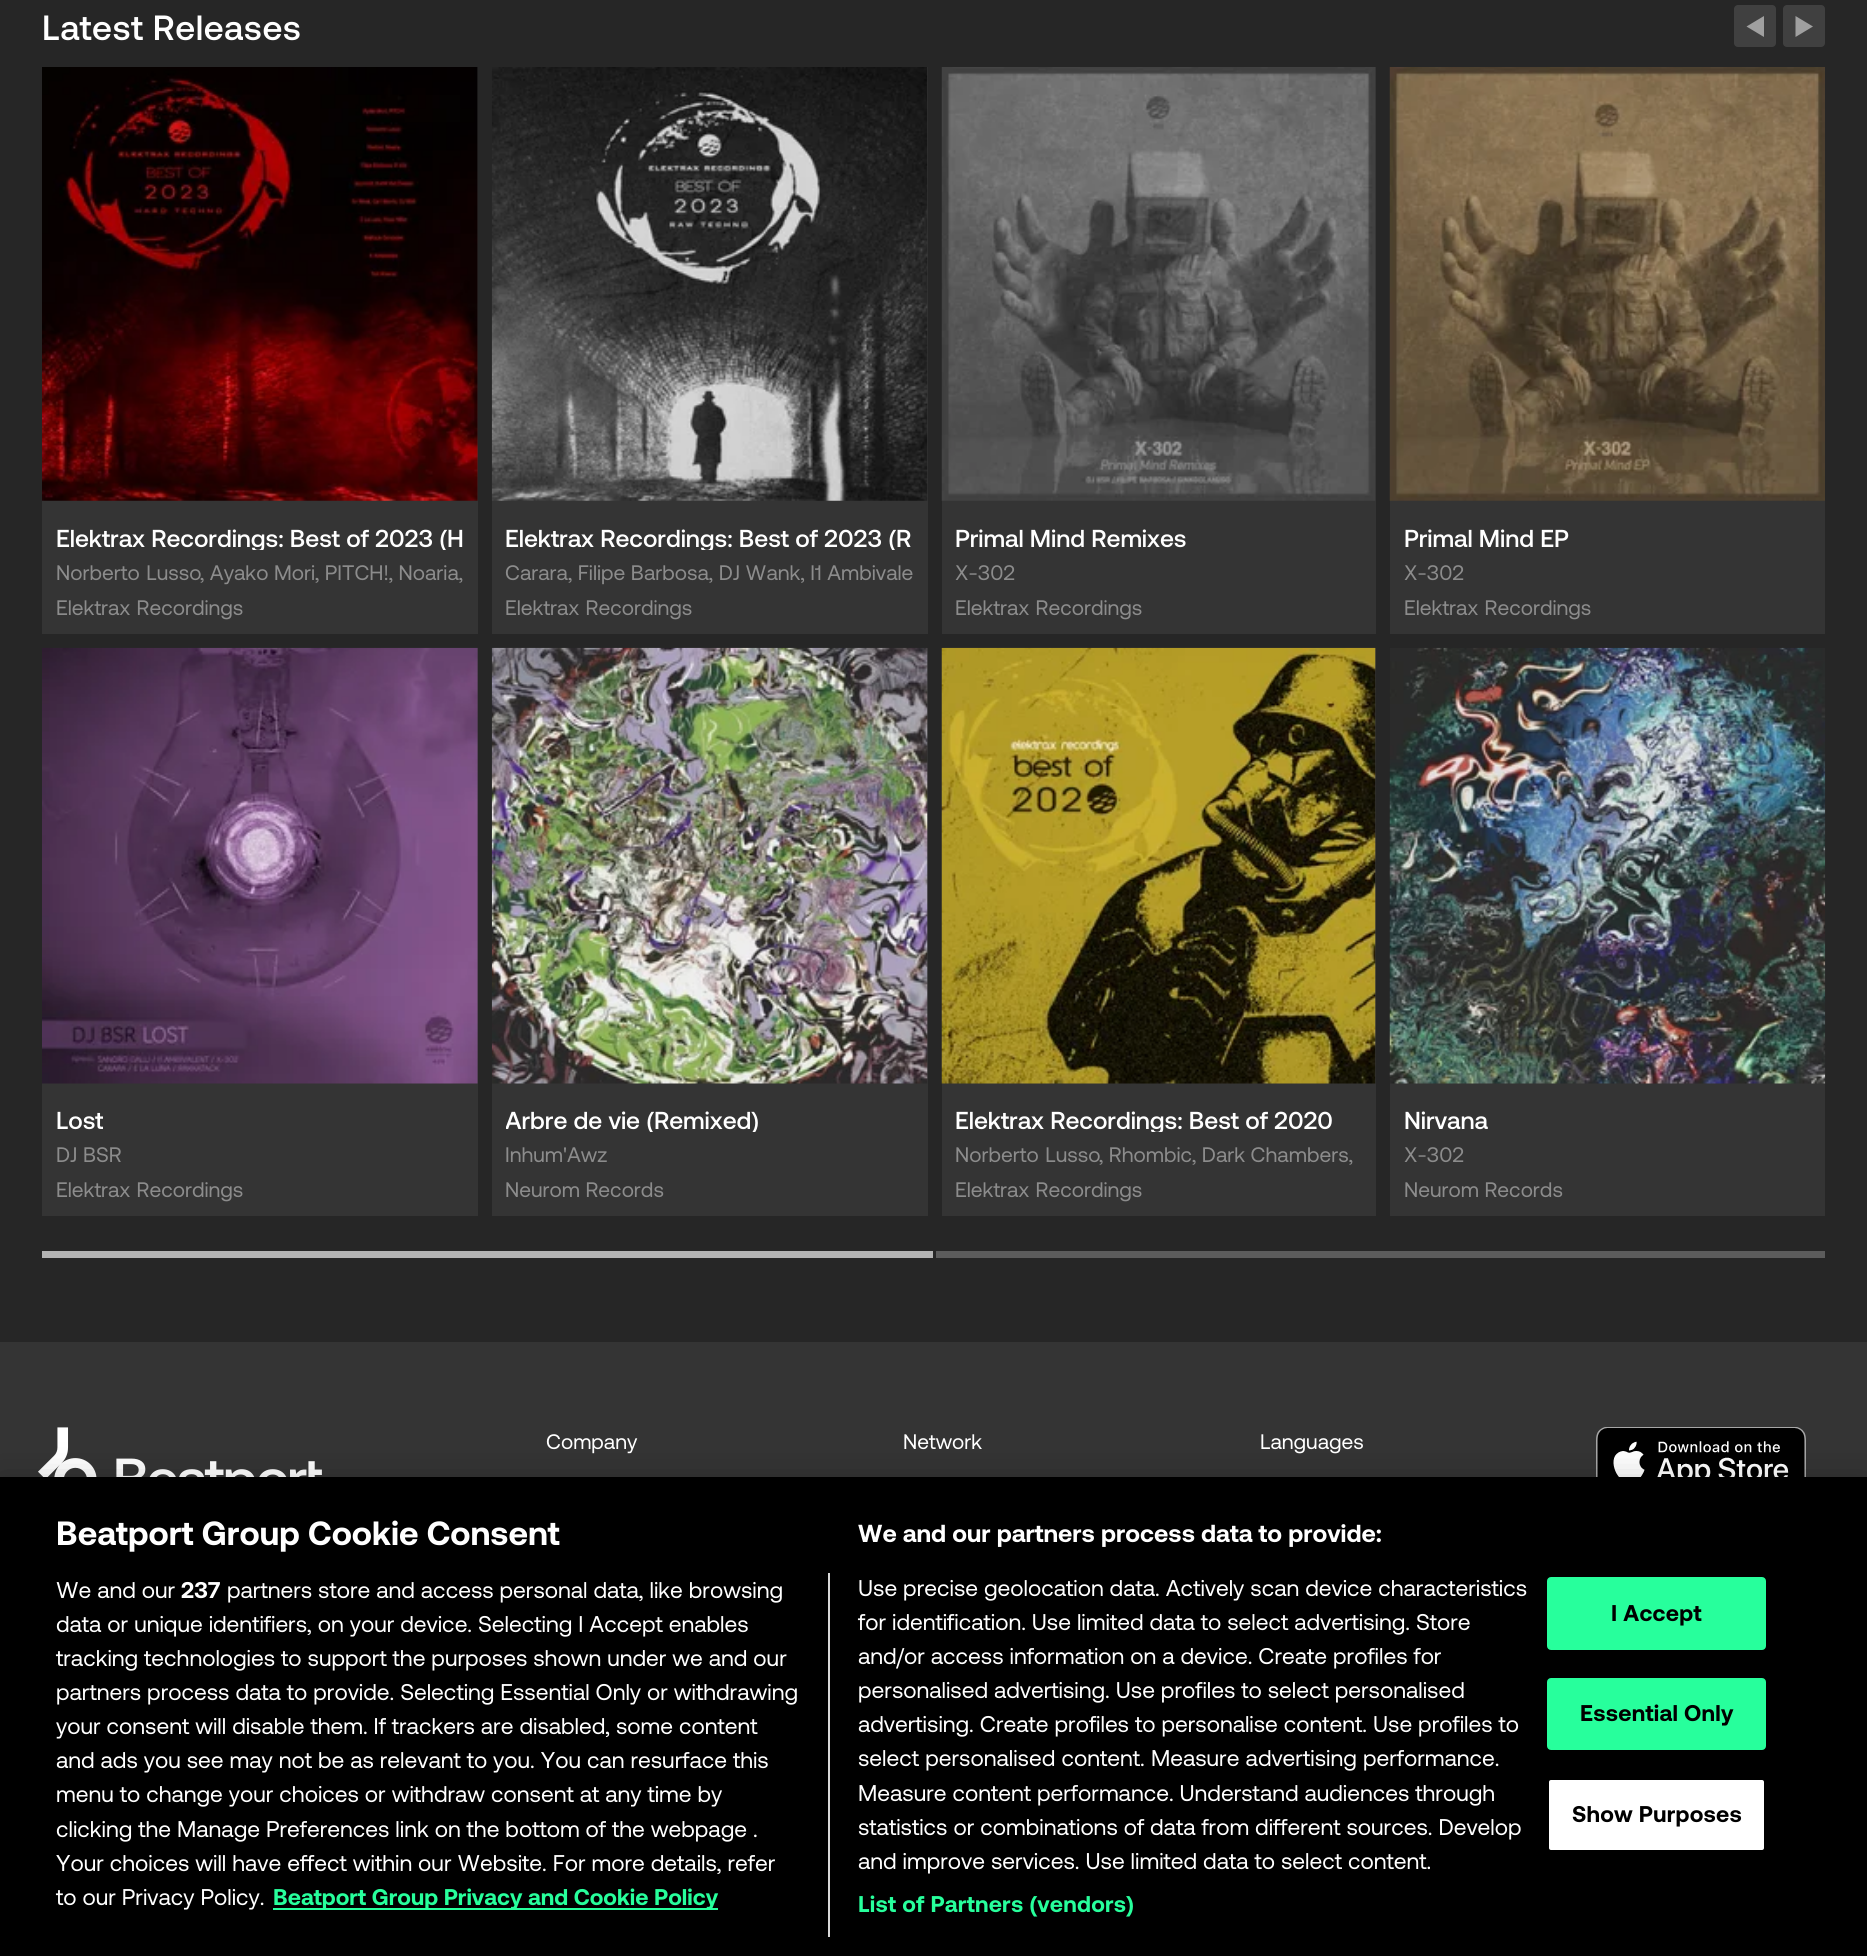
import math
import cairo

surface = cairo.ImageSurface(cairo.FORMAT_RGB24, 1867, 1956)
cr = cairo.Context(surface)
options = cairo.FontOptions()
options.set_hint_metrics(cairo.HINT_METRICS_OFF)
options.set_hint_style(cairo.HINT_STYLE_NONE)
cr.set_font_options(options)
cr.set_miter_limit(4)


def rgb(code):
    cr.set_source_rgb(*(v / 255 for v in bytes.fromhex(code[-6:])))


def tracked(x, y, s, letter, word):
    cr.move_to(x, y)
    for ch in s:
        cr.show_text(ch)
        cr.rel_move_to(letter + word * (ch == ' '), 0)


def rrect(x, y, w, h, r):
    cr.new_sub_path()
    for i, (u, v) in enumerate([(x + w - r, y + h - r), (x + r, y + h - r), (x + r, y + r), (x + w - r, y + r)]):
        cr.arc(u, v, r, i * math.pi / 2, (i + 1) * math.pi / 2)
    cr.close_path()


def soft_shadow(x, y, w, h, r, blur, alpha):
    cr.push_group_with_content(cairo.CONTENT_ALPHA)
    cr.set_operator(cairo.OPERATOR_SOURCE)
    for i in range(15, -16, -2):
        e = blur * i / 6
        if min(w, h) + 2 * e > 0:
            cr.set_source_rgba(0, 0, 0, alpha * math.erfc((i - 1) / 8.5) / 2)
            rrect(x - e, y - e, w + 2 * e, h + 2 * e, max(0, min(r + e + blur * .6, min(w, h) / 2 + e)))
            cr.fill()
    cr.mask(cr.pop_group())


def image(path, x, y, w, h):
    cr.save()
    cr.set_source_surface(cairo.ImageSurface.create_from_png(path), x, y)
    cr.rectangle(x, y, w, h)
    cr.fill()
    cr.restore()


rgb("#262626")
cr.paint()
rgb("#404040")
rrect(1734, 5, 42, 42, 4)
cr.fill()
image("img/1.png", 1746, 16, 18, 21)
rrect(1783, 5, 42, 42, 4)
cr.fill()
image("img/2.png", 1795, 16, 18, 21)
rgb("#343434")
cr.rectangle(42, 67, 436, 567)
cr.fill()
image("img/3.png", 42, 67, 436, 434)
cr.rectangle(492, 67, 436, 567)
cr.fill()
image("img/4.png", 491, 67, 437, 434)
cr.rectangle(942, 67, 434, 567)
cr.fill()
image("img/5.png", 941, 67, 435, 434)
cr.rectangle(1390, 500, 435, 134)
cr.fill()
image("img/6.png", 1389, 67, 436, 434)
cr.rectangle(42, 648, 436, 568)
cr.fill()
image("img/7.png", 42, 647, 436, 437)
cr.rectangle(492, 648, 436, 568)
cr.fill()
image("img/8.png", 491, 647, 437, 437)
cr.rectangle(942, 648, 434, 568)
cr.fill()
image("img/9.png", 941, 647, 435, 437)
cr.rectangle(1390, 1083, 435, 133)
cr.fill()
image("img/10.png", 1389, 647, 437, 437)
for x, y, w, h, color in [
    (42, 1251, 891, 7, "#b3b3b3"),
    (936, 1251, 889, 7, "#5c5c5c"),
    (0, 1342, 1867, 135, "#343434"),
]:
    rgb(color)
    cr.rectangle(x, y, w, h)
    cr.fill()
image("img/11.png", 38, 1427, 284, 50)
image("img/12.png", 1596, 1427, 210, 50)
rgb("#000000")
soft_shadow(0, 1477, 1867, 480, 0, 16, 0.2)
for x, y, w, h, color in [
    (0, 1477, 1867, 479, "#000000"),
    (828, 1573, 2, 364, "#d8d8d8"),
    (273, 1908, 445, 2, "#27ff9c"),
]:
    rgb(color)
    cr.rectangle(x, y, w, h)
    cr.fill()
rrect(1548, 1578, 217, 71, 3)
cr.fill_preserve()
cr.stroke()
rrect(1548, 1679, 217, 70, 3)
cr.fill_preserve()
cr.stroke()
rgb("#ffffff")
rrect(1548, 1779, 217, 72, 3)
cr.fill_preserve()
rgb("#000000")
cr.stroke()
cr.select_font_face("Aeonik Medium")
cr.set_font_size(35)
rgb("#ffffff")
tracked(42, 40, "Latest Releases", 0.5, 0)
cr.save()
cr.rectangle(56, 515, 408, 35)
cr.clip()
cr.set_font_size(24.5)
tracked(56, 547, "Elektrax Recordings: Best of 2023 (H", -0.05, 0)
cr.restore()
cr.select_font_face("Aeonik")
cr.set_font_size(21)
rgb("#8c8c8c")
tracked(56, 580, "Norberto Lusso", 0, 1)
cr.move_to(200, 580)
cr.show_text(", Ayako Mori, PITCH!, Noaria,")
tracked(56, 615, "Elektrax Recordings", 0, 1)
cr.save()
cr.rectangle(506, 515, 408, 35)
cr.clip()
cr.select_font_face("Aeonik Medium")
cr.set_font_size(24.5)
rgb("#ffffff")
tracked(505, 547, "Elektrax Recordings: Best of 2023 (R", -0.05, 0)
cr.restore()
cr.move_to(505, 580)
cr.show_text("Carara, Filipe Barbosa, DJ Wank, I1 Ambivale")
tracked(505, 615, "Elektrax Recordings", 0, 1)
cr.select_font_face("Aeonik Medium")
cr.set_font_size(24.5)
rgb("#ffffff")
tracked(955, 547, "Primal Mind Remixes", -0.05, 0)
cr.select_font_face("Aeonik")
cr.set_font_size(21)
rgb("#8c8c8c")
cr.move_to(955, 580)
cr.show_text("X-302")
tracked(955, 615, "Elektrax Recordings", 0, 1)
cr.select_font_face("Aeonik Medium")
cr.set_font_size(24.5)
rgb("#ffffff")
tracked(1404, 547, "Primal Mind EP", -0.05, 0)
cr.select_font_face("Aeonik")
cr.set_font_size(21)
rgb("#8c8c8c")
cr.move_to(1404, 580)
cr.show_text("X-302")
tracked(1404, 615, "Elektrax Recordings", 0, 1)
cr.save()
cr.rectangle(56, 1097, 47, 35)
cr.clip()
cr.select_font_face("Aeonik Medium")
cr.set_font_size(24.5)
rgb("#ffffff")
tracked(56, 1129, "Lost", -0.05, 0)
cr.restore()
cr.move_to(56, 1162)
cr.show_text("DJ BSR")
tracked(56, 1197, "Elektrax Recordings", 0, 1)
cr.save()
cr.rectangle(506, 1097, 254, 35)
cr.clip()
cr.select_font_face("Aeonik Medium")
cr.set_font_size(24.5)
rgb("#ffffff")
tracked(505, 1129, "Arbre de vie (Remixed)", -0.05, 0)
cr.restore()
cr.move_to(505, 1162)
cr.show_text("Inhum'Awz")
cr.move_to(505, 1197)
cr.show_text("Neurom Records")
cr.save()
cr.rectangle(956, 1097, 376, 35)
cr.clip()
cr.select_font_face("Aeonik Medium")
cr.set_font_size(24.5)
rgb("#ffffff")
tracked(955, 1129, "Elektrax Recordings: Best of 2020", -0.05, 0)
cr.restore()
tracked(955, 1162, "Norberto Lusso", 0, 1)
cr.move_to(1099, 1162)
cr.show_text(", Rhombic, Dark Chambers,")
tracked(955, 1197, "Elektrax Recordings", 0, 1)
cr.select_font_face("Aeonik Medium")
cr.set_font_size(24.5)
rgb("#ffffff")
tracked(1404, 1129, "Nirvana", -0.05, 0)
cr.select_font_face("Aeonik")
cr.set_font_size(21)
rgb("#8c8c8c")
cr.move_to(1404, 1162)
cr.show_text("X-302")
cr.move_to(1404, 1197)
cr.show_text("Neurom Records")
rgb("#ffffff")
for x, y, s in [
    (546, 1449, "Company"),
    (903, 1449, "Network"),
    (1260, 1449, "Languages"),
]:
    cr.move_to(x, y)
    cr.show_text(s)
cr.select_font_face("Aeonik", cairo.FONT_SLANT_NORMAL, cairo.FONT_WEIGHT_BOLD)
cr.set_font_size(33.6)
cr.move_to(56, 1545)
cr.show_text("Beatport Group Cookie Consent")
cr.set_font_size(24.6)
cr.move_to(858, 1542)
cr.show_text("We and our partners process data to provide:")
cr.select_font_face("Aeonik")
cr.set_font_size(22.75)
for x, y, s in [
    (858, 1596, "Use precise geolocation data. Actively scan device characteristics"),
    (858, 1630, "for identification. Use limited data to select advertising. Store"),
    (858, 1664, "and/or access information on a device. Create profiles for"),
    (858, 1698, "personalised advertising. Use profiles to select personalised"),
    (858, 1732, "advertising. Create profiles to personalise content. Use profiles to"),
]:
    cr.move_to(x, y)
    cr.show_text(s)
tracked(858, 1766, "select personalised content. Measure advertising performance.", 0, 0.25)
for x, y, s in [
    (858, 1801, "Measure content performance. Understand audiences through"),
    (858, 1835, "statistics or combinations of data from different sources. Develop"),
    (858, 1869, "and improve services. Use limited data to select content."),
]:
    cr.move_to(x, y)
    cr.show_text(s)
cr.select_font_face("Aeonik", cairo.FONT_SLANT_NORMAL, cairo.FONT_WEIGHT_BOLD)
rgb("#27ff9c")
tracked(858, 1912, "List of Partners (vendors)", 0.25, 0)
cr.select_font_face("Aeonik")
rgb("#ffffff")
cr.move_to(56, 1598)
cr.show_text("We and our")
cr.select_font_face("Aeonik", cairo.FONT_SLANT_NORMAL, cairo.FONT_WEIGHT_BOLD)
cr.move_to(181, 1598)
cr.show_text("237")
cr.select_font_face("Aeonik")
for x, y, s in [
    (227, 1598, "partners store and access personal data, like browsing"),
    (56, 1632, "data or unique identifiers, on your device. Selecting I Accept enables"),
    (56, 1666, "tracking technologies to support the purposes shown under we and our"),
    (56, 1700, "partners process data to provide. Selecting Essential Only or withdrawing"),
    (56, 1734, "your consent will disable them. If trackers are disabled, some content"),
    (56, 1768, "and ads you see may not be as relevant to you. You can resurface this"),
    (56, 1802, "menu to change your choices or withdraw consent at any time by"),
    (56, 1837, "clicking the Manage Preferences link on the bottom of the webpage ."),
    (56, 1871, "Your choices will have effect within our Website. For more details, refer"),
    (56, 1905, "to our Privacy Policy."),
]:
    cr.move_to(x, y)
    cr.show_text(s)
cr.select_font_face("Aeonik", cairo.FONT_SLANT_NORMAL, cairo.FONT_WEIGHT_BOLD)
rgb("#27ff9c")
cr.move_to(273, 1905)
cr.show_text("Beatport Group Privacy and Cookie Policy")
rgb("#000000")
for x, y, s in [
    (1611, 1621, "I Accept"),
    (1580, 1721, "Essential Only"),
    (1572, 1822, "Show Purposes"),
]:
    tracked(x, y, s, 0.25, 0)
surface.write_to_png("page.png")
